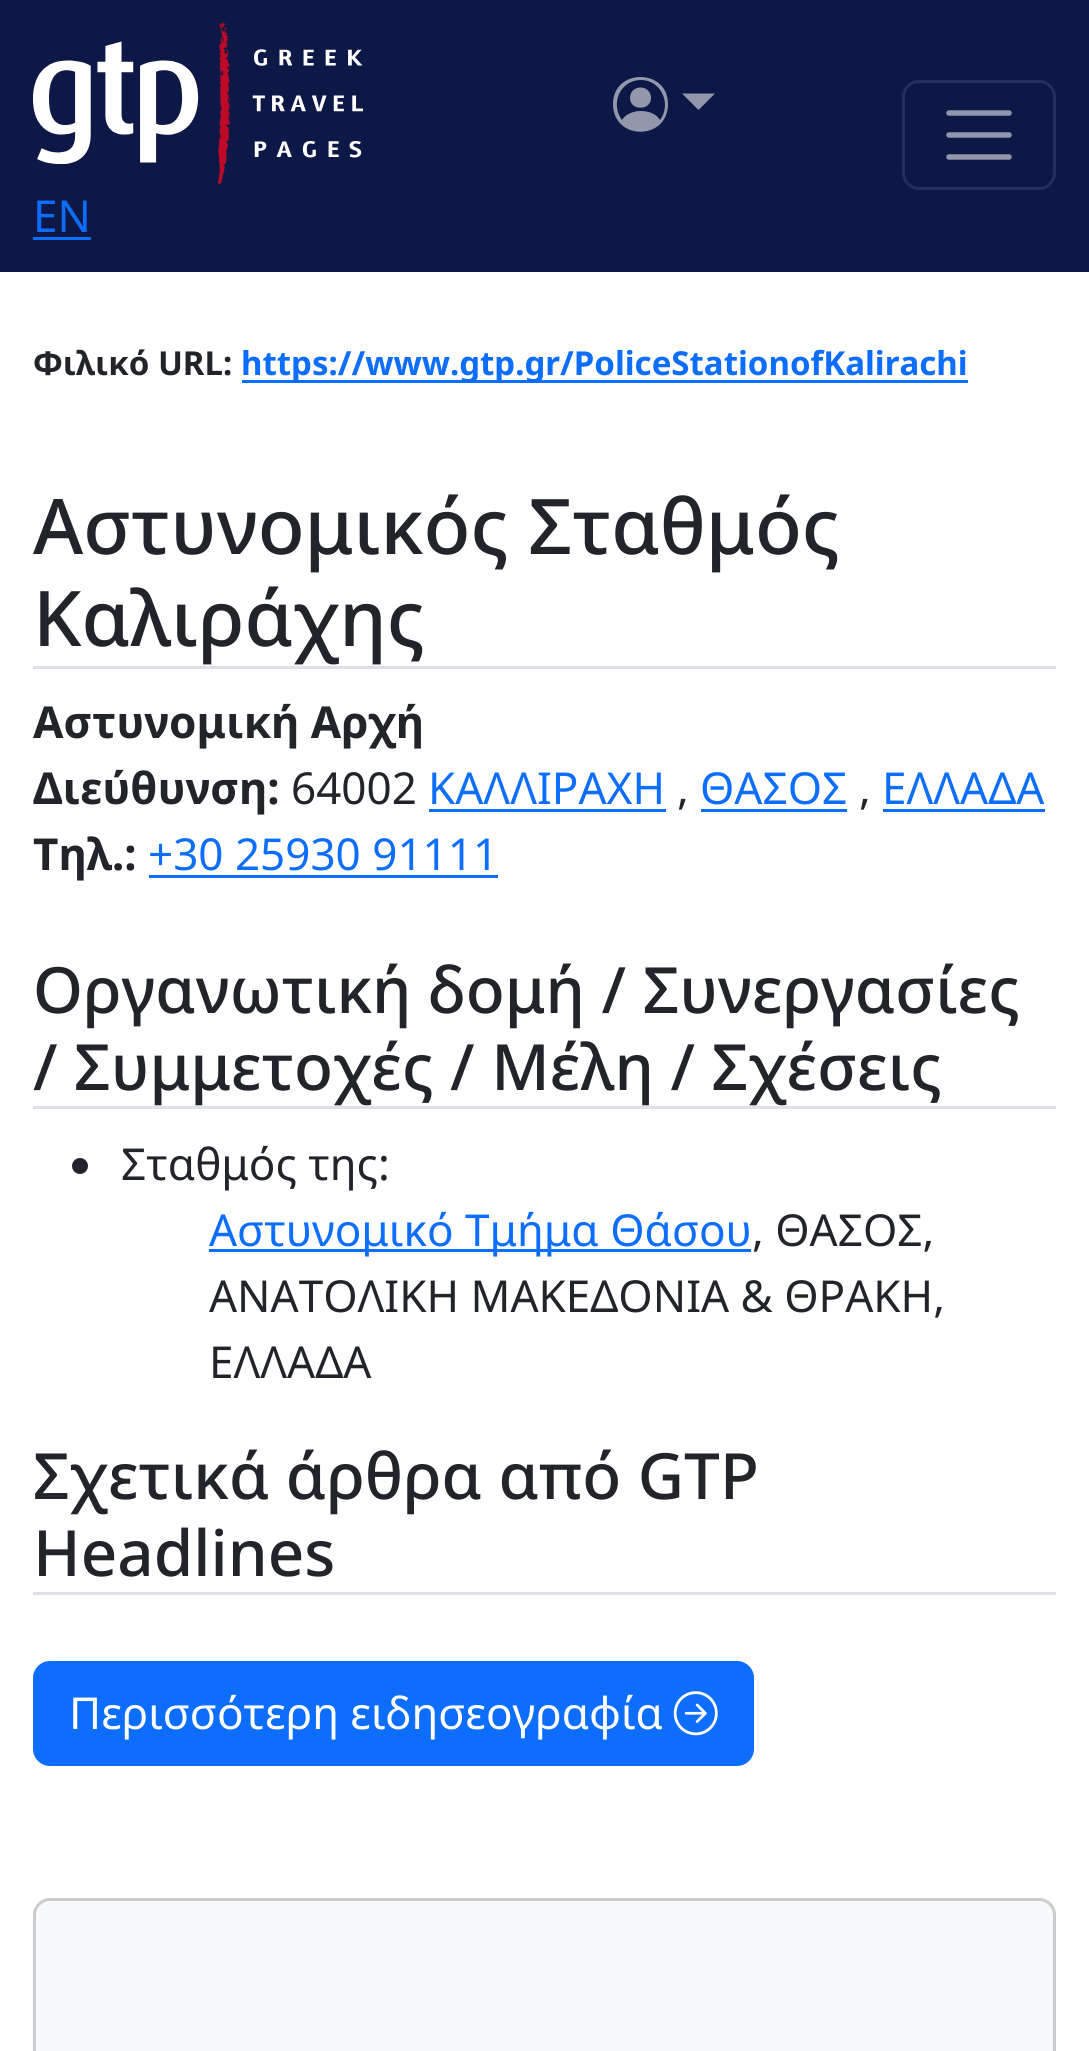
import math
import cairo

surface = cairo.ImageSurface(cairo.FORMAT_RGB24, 1089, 2051)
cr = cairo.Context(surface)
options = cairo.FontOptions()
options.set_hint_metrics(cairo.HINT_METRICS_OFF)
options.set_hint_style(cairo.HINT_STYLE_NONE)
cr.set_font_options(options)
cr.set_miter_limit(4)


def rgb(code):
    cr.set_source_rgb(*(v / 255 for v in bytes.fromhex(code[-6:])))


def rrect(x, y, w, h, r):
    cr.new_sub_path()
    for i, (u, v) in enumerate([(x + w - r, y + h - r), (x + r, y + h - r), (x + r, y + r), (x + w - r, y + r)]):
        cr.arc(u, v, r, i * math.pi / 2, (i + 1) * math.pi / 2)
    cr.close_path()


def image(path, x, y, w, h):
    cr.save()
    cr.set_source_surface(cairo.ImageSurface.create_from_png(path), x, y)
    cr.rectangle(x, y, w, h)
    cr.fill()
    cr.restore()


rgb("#ffffff")
cr.paint()
rgb("#0d1846")
cr.rectangle(0, 0, 1089, 272)
cr.fill()
rgb("#9297ac")
cr.new_path()
cr.move_to(651, 98)
cr.curve_to(651, 111, 630, 111, 630, 98)
cr.curve_to(630, 84, 651, 84, 651, 98)
cr.close_path()
cr.move_to(613, 104)
cr.curve_to(613, 68, 668, 68, 668, 104)
cr.curve_to(668, 141, 613, 141, 613, 104)
cr.close_path()
cr.move_to(641, 80)
cr.curve_to(620, 80, 610, 104, 622, 120)
cr.curve_to(629, 108, 653, 108, 660, 120)
cr.curve_to(672, 104, 661, 80, 641, 80)
cr.close_path()
cr.fill()
cr.new_path()
cr.move_to(682, 93.5)
cr.line_to(715, 93.5)
cr.line_to(698.5, 110)
cr.close_path()
cr.fill()
rrect(903.5, 81.5, 151, 107, 15.5)
rgb("#252f59")
cr.set_line_width(3)
cr.stroke()
cr.new_path()
cr.move_to(949, 113)
cr.line_to(1009, 113)
cr.move_to(949, 135)
cr.line_to(1009, 135)
cr.move_to(949, 157)
cr.line_to(1009, 157)
rgb("#9297ac")
cr.set_line_width(5.5)
cr.set_line_cap(cairo.LINE_CAP_ROUND)
cr.stroke()
image("img/1.png", 33, 22, 330, 162)
for x, y, w, h, color in [
    (33, 237, 58, 3, "#0d6efd"),
    (242, 380, 726, 3, "#0d6efd"),
    (33, 666, 1023, 3, "#dee2e6"),
    (429, 809, 237, 3, "#0d6efd"),
    (701, 809, 146, 3, "#0d6efd"),
    (883, 809, 162, 3, "#0d6efd"),
    (149, 875, 349, 3, "#0d6efd"),
    (33, 1106, 1023, 3, "#dee2e6"),
]:
    rgb(color)
    cr.rectangle(x, y, w, h)
    cr.fill()
rgb("#212529")
cr.arc(80, 1166, 8, 0, 2 * math.pi)
cr.fill()
rgb("#0d6efd")
cr.rectangle(209, 1249, 542, 3)
cr.fill()
rgb("#dee2e6")
cr.rectangle(33, 1592, 1023, 3)
cr.fill()
rgb("#0d6efd")
rrect(34.5, 1662.5, 718, 102, 15.5)
cr.fill_preserve()
cr.set_line_width(3)
cr.set_line_cap(cairo.LINE_CAP_BUTT)
cr.stroke()
image("img/2.png", 673, 1691, 45, 45)
rgb("#f8f9fa")
rrect(33, 1898, 1023, 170, 17)
cr.fill()
rrect(34.5, 1899.5, 1020, 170, 15.5)
cr.set_source_rgba(0, 0, 0, 0.18)
cr.stroke()
cr.select_font_face("Noto Sans")
cr.set_font_size(44)
rgb("#0d6efd")
cr.move_to(33, 232)
cr.show_text("EN")
cr.select_font_face("Noto Sans", cairo.FONT_SLANT_NORMAL, cairo.FONT_WEIGHT_BOLD)
cr.set_font_size(33)
rgb("#212529")
cr.move_to(33, 375)
cr.show_text("Φιλικό URL:")
rgb("#0d6efd")
cr.move_to(241, 375)
cr.show_text("https://www.gtp.gr/PoliceStationofKalirachi")
cr.select_font_face("Noto Sans Medium")
cr.set_font_size(76.75)
rgb("#212529")
cr.move_to(33, 554)
cr.show_text("Αστυνομικός Σταθμός")
cr.move_to(33, 646)
cr.show_text("Καλιράχης")
cr.select_font_face("Noto Sans", cairo.FONT_SLANT_NORMAL, cairo.FONT_WEIGHT_BOLD)
cr.set_font_size(44)
cr.move_to(33, 738)
cr.show_text("Αστυνομική Αρχή")
cr.move_to(33, 804)
cr.show_text("Διεύθυνση:")
cr.select_font_face("Noto Sans")
cr.move_to(291, 804)
cr.show_text("64002")
rgb("#0d6efd")
cr.move_to(428, 804)
cr.show_text("ΚΑΛΛΙΡΑΧΗ")
rgb("#212529")
cr.move_to(677, 804)
cr.show_text(",")
rgb("#0d6efd")
cr.move_to(700, 804)
cr.show_text("ΘΑΣΟΣ")
rgb("#212529")
cr.move_to(859, 804)
cr.show_text(",")
rgb("#0d6efd")
cr.move_to(882, 804)
cr.show_text("ΕΛΛΑΔΑ")
cr.select_font_face("Noto Sans", cairo.FONT_SLANT_NORMAL, cairo.FONT_WEIGHT_BOLD)
rgb("#212529")
cr.move_to(33, 870)
cr.show_text("Τηλ.:")
cr.select_font_face("Noto Sans")
rgb("#0d6efd")
cr.move_to(148, 870)
cr.show_text("+30 25930 91111")
cr.select_font_face("Noto Sans Medium")
cr.set_font_size(63.75)
rgb("#212529")
cr.move_to(33, 1013)
cr.show_text("Οργανωτική δομή / Συνεργασίες")
cr.move_to(33, 1090)
cr.show_text("/ Συμμετοχές / Μέλη / Σχέσεις")
cr.select_font_face("Noto Sans")
cr.set_font_size(44)
cr.move_to(121, 1180)
cr.show_text("Σταθμός της:")
rgb("#0d6efd")
cr.move_to(209, 1246)
cr.show_text("Αστυνομικό Τμήμα Θάσου")
rgb("#212529")
for x, y, s in [
    (752, 1246, ", ΘΑΣΟΣ,"),
    (209, 1312, "ΑΝΑΤΟΛΙΚΗ ΜΑΚΕΔΟΝΙΑ & ΘΡΑΚΗ,"),
    (209, 1378, "ΕΛΛΑΔΑ"),
]:
    cr.move_to(x, y)
    cr.show_text(s)
cr.select_font_face("Noto Sans Medium")
cr.set_font_size(63.75)
cr.move_to(33, 1499)
cr.show_text("Σχετικά άρθρα από GTP")
cr.move_to(33, 1576)
cr.show_text("Headlines")
cr.select_font_face("Noto Sans")
cr.set_font_size(44)
rgb("#ffffff")
cr.move_to(69, 1729)
cr.show_text("Περισσότερη ειδησεογραφία")
surface.write_to_png("page.png")
